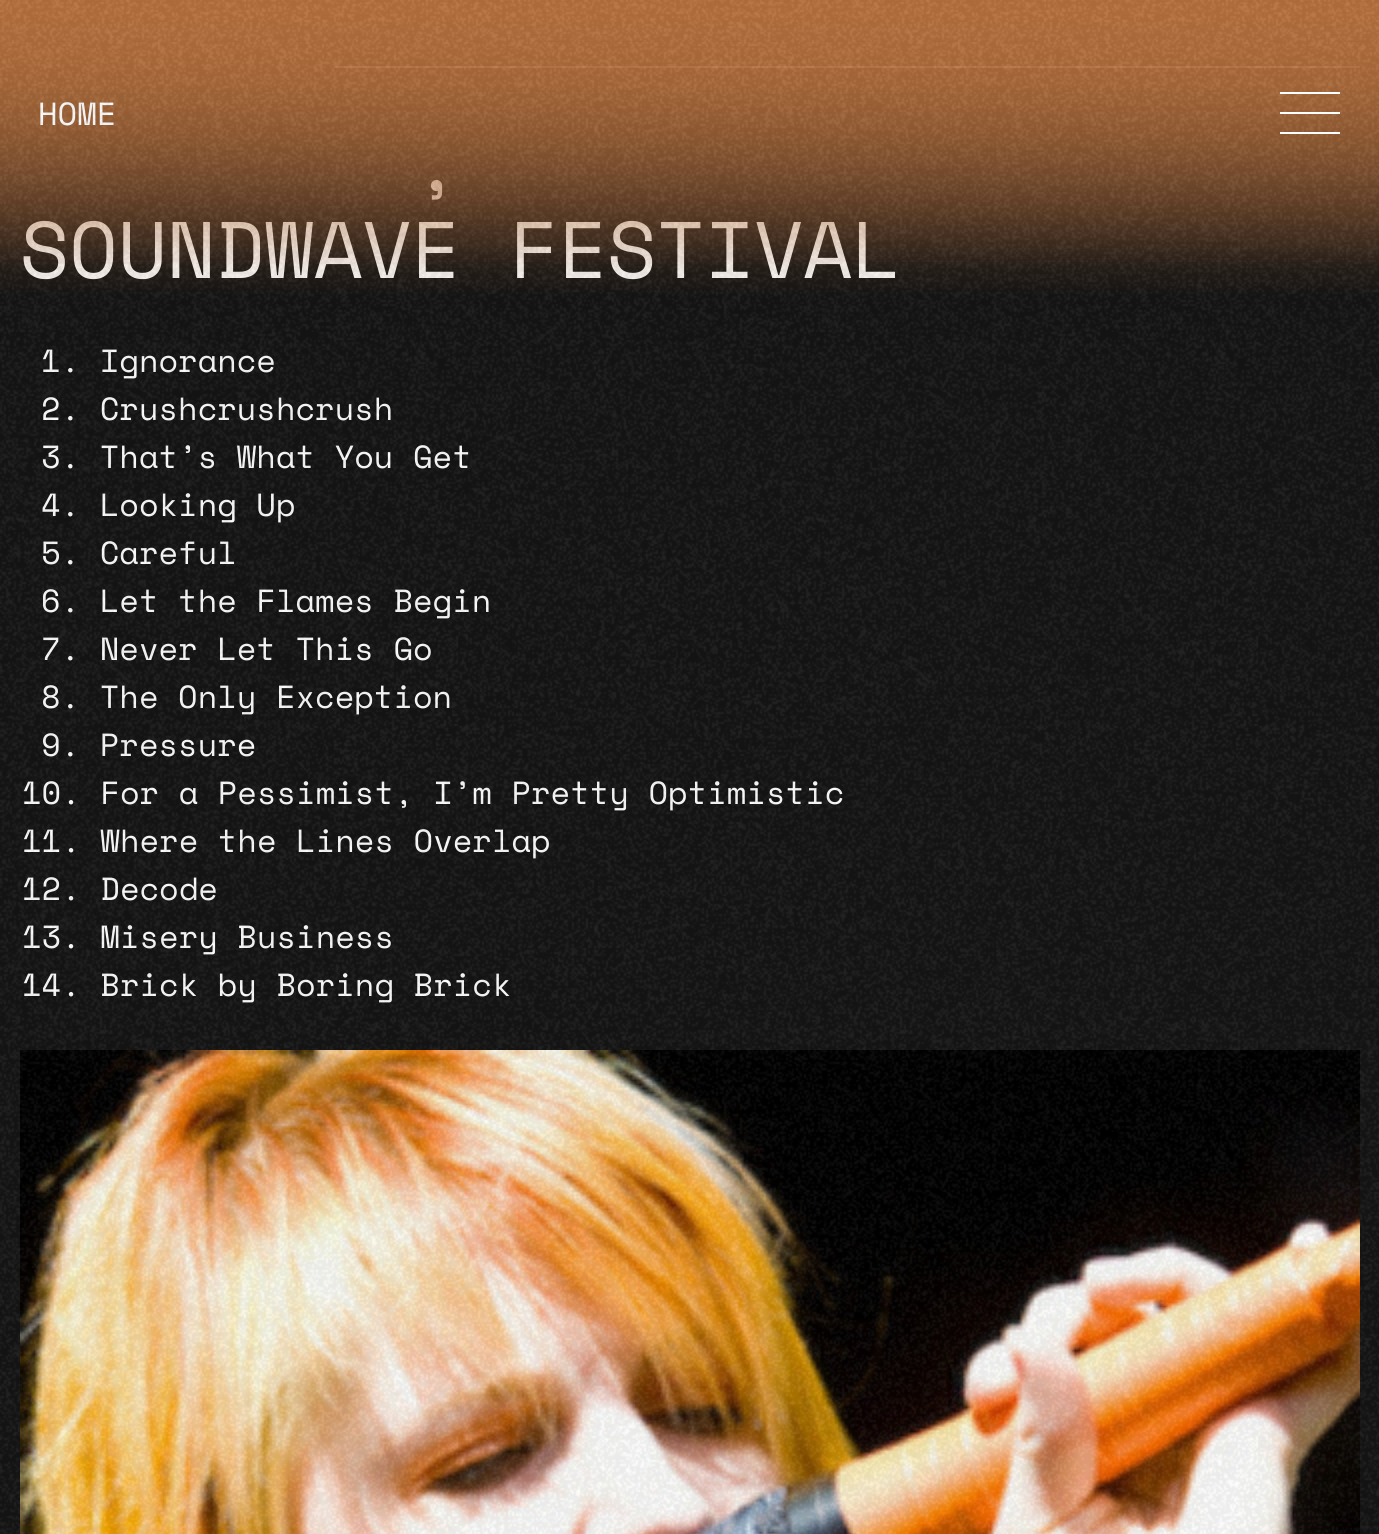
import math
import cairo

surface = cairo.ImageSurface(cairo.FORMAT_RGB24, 1379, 1534)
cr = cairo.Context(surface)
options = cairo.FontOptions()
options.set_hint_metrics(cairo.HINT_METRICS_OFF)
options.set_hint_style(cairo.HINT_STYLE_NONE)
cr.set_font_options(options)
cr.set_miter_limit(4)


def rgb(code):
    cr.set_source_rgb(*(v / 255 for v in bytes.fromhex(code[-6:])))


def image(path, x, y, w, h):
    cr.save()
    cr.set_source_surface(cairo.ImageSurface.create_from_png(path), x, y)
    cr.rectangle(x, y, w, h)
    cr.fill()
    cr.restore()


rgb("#141414")
cr.paint()
rgb("#ffffff")
cr.rectangle(334, 66, 1026, 2)
cr.fill()
image("img/2.png", 20, 1050, 1340, 484)
cr.select_font_face("Space Mono")
cr.set_font_size(80)
cr.move_to(412, 190)
cr.show_text(",")
cr.move_to(20, 278)
cr.show_text("SOUNDWAVE FESTIVAL")
gradient = cairo.LinearGradient(690, 300, 690, 0)
gradient.add_color_stop_rgba(0, 0.725, 0.447, 0.243, 0)
gradient.add_color_stop_rgba(1, 0.725, 0.447, 0.243, 1)
cr.set_source(gradient)
cr.rectangle(0, 2, 1379, 292)
cr.fill()
gradient = cairo.LinearGradient(690, 300, 690, 0)
gradient.add_color_stop_rgba(0.1, 0.725, 0.447, 0.243, 0)
gradient.add_color_stop_rgba(1, 0.725, 0.447, 0.243, 1)
cr.set_source(gradient)
cr.rectangle(0, 0, 1379, 264)
cr.fill()
cr.set_font_size(32)
rgb("#ffffff")
for x, y, s in [
    (38, 125, "HOME"),
    (41, 372, "1. Ignorance"),
    (41, 420, "2. Crushcrushcrush"),
    (41, 468, "3. That’s What You Get"),
    (41, 516, "4. Looking Up"),
    (41, 564, "5. Careful"),
    (41, 612, "6. Let the Flames Begin"),
    (41, 660, "7. Never Let This Go"),
    (41, 708, "8. The Only Exception"),
    (41, 756, "9. Pressure"),
    (22, 804, "10. For a Pessimist, I’m Pretty Optimistic"),
    (22, 852, "11. Where the Lines Overlap"),
    (22, 900, "12. Decode"),
    (22, 948, "13. Misery Business"),
    (22, 996, "14. Brick by Boring Brick"),
]:
    cr.move_to(x, y)
    cr.show_text(s)
image("img/1.png", 0, 0, 1379, 1534)
for x, y, w, h, color in [
    (1280, 132, 60, 2, "#ffffff"),
    (1280, 112, 60, 2, "#ffffff"),
    (1280, 92, 60, 2, "#ffffff"),
]:
    rgb(color)
    cr.rectangle(x, y, w, h)
    cr.fill()
surface.write_to_png("page.png")
